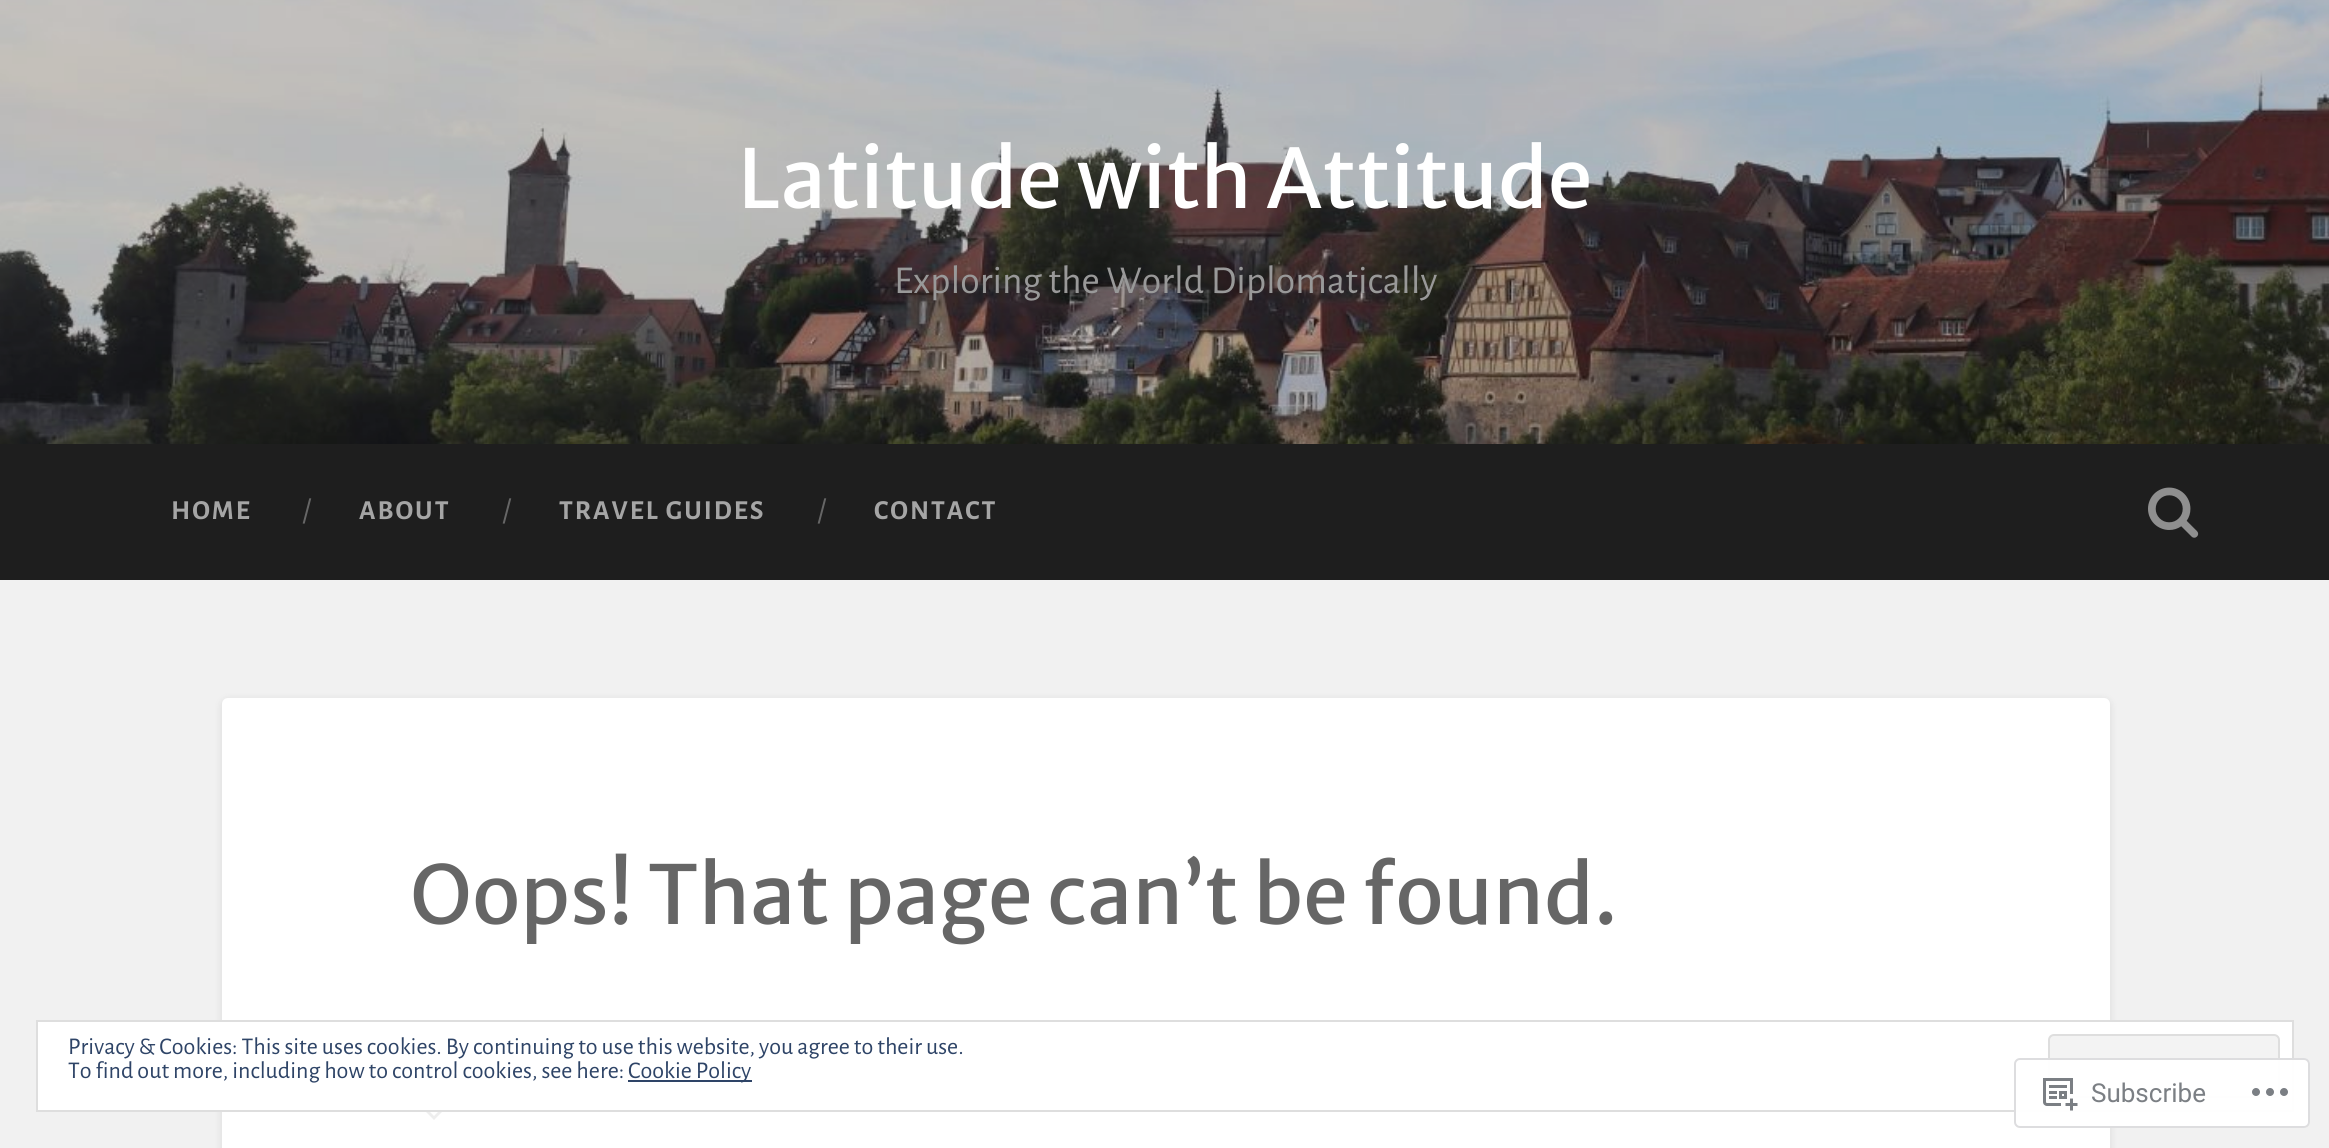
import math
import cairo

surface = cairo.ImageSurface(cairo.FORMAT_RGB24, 2329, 1148)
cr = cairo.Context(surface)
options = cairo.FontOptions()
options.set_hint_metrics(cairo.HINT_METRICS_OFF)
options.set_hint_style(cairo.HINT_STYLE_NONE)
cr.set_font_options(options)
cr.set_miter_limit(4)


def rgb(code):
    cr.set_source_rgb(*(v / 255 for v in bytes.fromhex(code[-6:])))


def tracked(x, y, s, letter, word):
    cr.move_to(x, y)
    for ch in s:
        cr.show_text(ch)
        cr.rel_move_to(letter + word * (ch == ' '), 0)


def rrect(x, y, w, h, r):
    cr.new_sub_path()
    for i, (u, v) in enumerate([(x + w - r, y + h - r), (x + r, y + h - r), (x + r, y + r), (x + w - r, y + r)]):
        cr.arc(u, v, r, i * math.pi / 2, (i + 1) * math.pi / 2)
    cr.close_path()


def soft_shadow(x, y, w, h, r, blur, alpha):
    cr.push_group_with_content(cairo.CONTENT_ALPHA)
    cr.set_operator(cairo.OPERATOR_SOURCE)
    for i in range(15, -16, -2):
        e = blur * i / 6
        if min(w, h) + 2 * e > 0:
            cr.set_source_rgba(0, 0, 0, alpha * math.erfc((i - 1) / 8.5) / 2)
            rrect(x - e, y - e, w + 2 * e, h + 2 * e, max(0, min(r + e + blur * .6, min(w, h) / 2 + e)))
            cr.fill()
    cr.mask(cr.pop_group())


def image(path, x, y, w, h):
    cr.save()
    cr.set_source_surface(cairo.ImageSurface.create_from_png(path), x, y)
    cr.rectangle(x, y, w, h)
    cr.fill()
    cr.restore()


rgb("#f1f1f1")
cr.paint()
image("img/1.png", 0, 0, 2329, 444)
rgb("#1e1e1e")
cr.rectangle(0, 444, 2329, 136)
cr.fill()
image("img/2.png", 2148, 487, 51, 51)
rgb("#000000")
soft_shadow(222, 700, 1888, 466, 6, 4, 0.1)
rgb("#ffffff")
rrect(222, 698, 1888, 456, 6)
cr.fill()
rgb("#eeeeee")
cr.new_path()
cr.move_to(410, 1096)
cr.line_to(458, 1096)
cr.line_to(434, 1120)
cr.close_path()
cr.fill()
rgb("#ffffff")
cr.new_path()
cr.move_to(412, 1094)
cr.line_to(456, 1094)
cr.line_to(434, 1116)
cr.close_path()
cr.fill()
cr.rectangle(37, 1021, 2256, 90)
cr.fill_preserve()
rgb("#dedede")
cr.stroke()
rgb("#f3f3f3")
rrect(2049, 1035, 230, 62, 5)
cr.fill_preserve()
rgb("#dedede")
cr.stroke()
rgb("#2e4467")
cr.rectangle(628, 1080, 124, 2)
cr.fill()
cr.set_source_rgba(1, 1, 1, 0.98)
rrect(2014, 1058, 296, 70, 6)
cr.fill()
rrect(2015, 1059, 294, 68, 5)
cr.set_source_rgba(0.863, 0.863, 0.871, 0.98)
cr.stroke()
image("img/3.png", 2043, 1078, 35, 33)
image("img/4.png", 2252, 1088, 36, 8)
cr.select_font_face("Merriweather Sans")
cr.set_font_size(81)
rgb("#ffffff")
cr.move_to(738, 208)
cr.show_text("Latitude with Attitude")
cr.select_font_face("Alegreya Sans")
cr.set_font_size(39.6)
rgb("#999999")
cr.move_to(894, 293)
cr.show_text("Exploring the World Diplomatically")
cr.select_font_face("Alegreya Sans", cairo.FONT_SLANT_NORMAL, cairo.FONT_WEIGHT_BOLD)
cr.set_font_size(27.5)
rgb("#a5a5a5")
tracked(171, 519, "HOME", 2, 0)
cr.select_font_face("Alegreya Sans")
cr.set_font_size(32)
rgb("#666666")
cr.move_to(302, 520)
cr.show_text("/")
cr.select_font_face("Alegreya Sans", cairo.FONT_SLANT_NORMAL, cairo.FONT_WEIGHT_BOLD)
cr.set_font_size(27.5)
rgb("#a5a5a5")
tracked(359, 519, "ABOUT", 2, 0)
cr.select_font_face("Alegreya Sans")
cr.set_font_size(32)
rgb("#666666")
cr.move_to(502, 520)
cr.show_text("/")
cr.select_font_face("Alegreya Sans", cairo.FONT_SLANT_NORMAL, cairo.FONT_WEIGHT_BOLD)
cr.set_font_size(27.5)
rgb("#a5a5a5")
tracked(559, 519, "TRAVEL GUIDES", 2, 0)
cr.select_font_face("Alegreya Sans")
cr.set_font_size(32)
rgb("#666666")
cr.move_to(817, 520)
cr.show_text("/")
cr.select_font_face("Alegreya Sans", cairo.FONT_SLANT_NORMAL, cairo.FONT_WEIGHT_BOLD)
cr.set_font_size(27.5)
rgb("#a5a5a5")
tracked(874, 519, "CONTACT", 2, 0)
cr.select_font_face("Merriweather Sans")
cr.set_font_size(81)
rgb("#666666")
cr.move_to(410, 924)
cr.show_text("Oops! That page can’t be found.")
cr.select_font_face("Alegreya Sans")
cr.set_font_size(24)
rgb("#2e4467")
for x, y, s in [
    (68, 1054, "Privacy & Cookies: This site uses cookies. By continuing to use this website, you agree to their use."),
    (68, 1078, "To find out more, including how to control cookies, see here:"),
    (628, 1078, "Cookie Policy"),
]:
    cr.move_to(x, y)
    cr.show_text(s)
cr.select_font_face("Roboto")
cr.set_font_size(26)
rgb("#7b7f84")
cr.move_to(2091, 1102)
cr.show_text("Subscribe")
surface.write_to_png("page.png")
